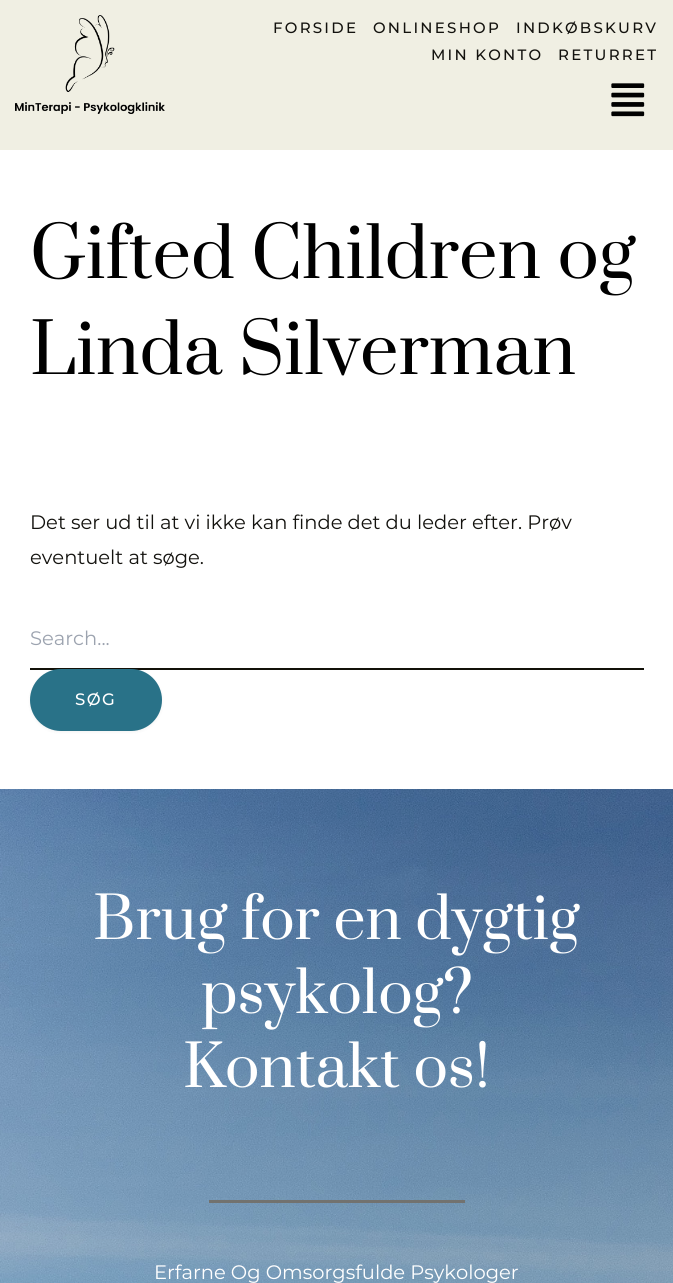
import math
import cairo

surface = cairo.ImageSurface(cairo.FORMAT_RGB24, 673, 1283)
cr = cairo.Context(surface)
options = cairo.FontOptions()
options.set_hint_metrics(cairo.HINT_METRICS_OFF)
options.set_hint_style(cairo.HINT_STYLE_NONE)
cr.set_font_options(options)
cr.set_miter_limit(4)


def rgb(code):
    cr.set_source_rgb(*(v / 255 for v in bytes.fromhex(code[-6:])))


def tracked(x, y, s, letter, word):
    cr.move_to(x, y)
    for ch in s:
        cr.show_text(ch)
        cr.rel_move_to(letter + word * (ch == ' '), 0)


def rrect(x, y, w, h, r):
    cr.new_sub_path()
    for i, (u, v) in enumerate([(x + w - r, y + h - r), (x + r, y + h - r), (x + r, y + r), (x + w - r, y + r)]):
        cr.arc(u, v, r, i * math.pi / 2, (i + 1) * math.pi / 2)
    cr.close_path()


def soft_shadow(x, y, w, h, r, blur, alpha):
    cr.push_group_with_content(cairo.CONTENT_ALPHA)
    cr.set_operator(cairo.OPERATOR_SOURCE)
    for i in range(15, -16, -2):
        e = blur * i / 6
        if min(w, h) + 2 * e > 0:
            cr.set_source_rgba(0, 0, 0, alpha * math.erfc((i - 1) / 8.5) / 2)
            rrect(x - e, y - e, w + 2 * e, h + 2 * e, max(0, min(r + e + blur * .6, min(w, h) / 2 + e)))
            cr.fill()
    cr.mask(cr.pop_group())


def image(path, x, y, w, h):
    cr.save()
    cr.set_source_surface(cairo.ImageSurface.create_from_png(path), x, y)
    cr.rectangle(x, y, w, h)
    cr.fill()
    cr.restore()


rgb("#ffffff")
cr.paint()
rgb("#f0efe3")
cr.rectangle(0, 0, 673, 150)
cr.fill()
image("img/1.png", 15, 15, 150, 99)
image("img/2.png", 611, 83, 34, 34)
rgb("#131109")
cr.rectangle(30, 668, 614, 2)
cr.fill()
rgb("#000000")
soft_shadow(30, 671, 132, 61, 30.5, 1.5, 0.05)
rgb("#297288")
rrect(30, 669, 132, 62, 31)
cr.fill()
image("img/3.png", 0, 789, 673, 494)
rgb("#72726f")
cr.rectangle(209, 1200, 256, 3)
cr.fill()
cr.select_font_face("Montserrat Medium")
cr.set_font_size(15)
rgb("#13120e")
for x, y, s in [
    (273, 33, "FORSIDE"),
    (373, 33, "ONLINESHOP"),
    (516, 33, "INDKØBSKURV"),
    (431, 60, "MIN KONTO"),
    (558, 60, "RETURRET"),
]:
    tracked(x, y, s, 2.25, 0)
cr.select_font_face("Prata")
cr.set_font_size(68.5)
rgb("#000000")
cr.move_to(30, 278)
cr.show_text("Gifted Children og")
cr.move_to(30, 374)
cr.show_text("Linda Silverman")
cr.select_font_face("Montserrat")
cr.set_font_size(19.5)
rgb("#13120e")
cr.move_to(30, 529)
cr.show_text("Det ser ud til at vi ikke kan finde det du leder efter. Prøv")
cr.move_to(30, 564)
cr.show_text("eventuelt at søge.")
rgb("#9ca3af")
cr.move_to(30, 645)
cr.show_text("Search...")
cr.select_font_face("Montserrat Medium")
cr.set_font_size(16.5)
rgb("#ffffff")
tracked(75, 705, "SØG", 1.5, 0)
cr.select_font_face("Prata")
cr.set_font_size(57)
for x, y, s in [
    (93, 939, "Brug for en dygtig"),
    (201, 1013, "psykolog?"),
    (183, 1087, "Kontakt os!"),
]:
    cr.move_to(x, y)
    cr.show_text(s)
cr.select_font_face("Montserrat")
cr.set_font_size(19.5)
cr.move_to(154, 1279)
cr.show_text("Erfarne Og Omsorgsfulde Psykologer")
surface.write_to_png("page.png")
